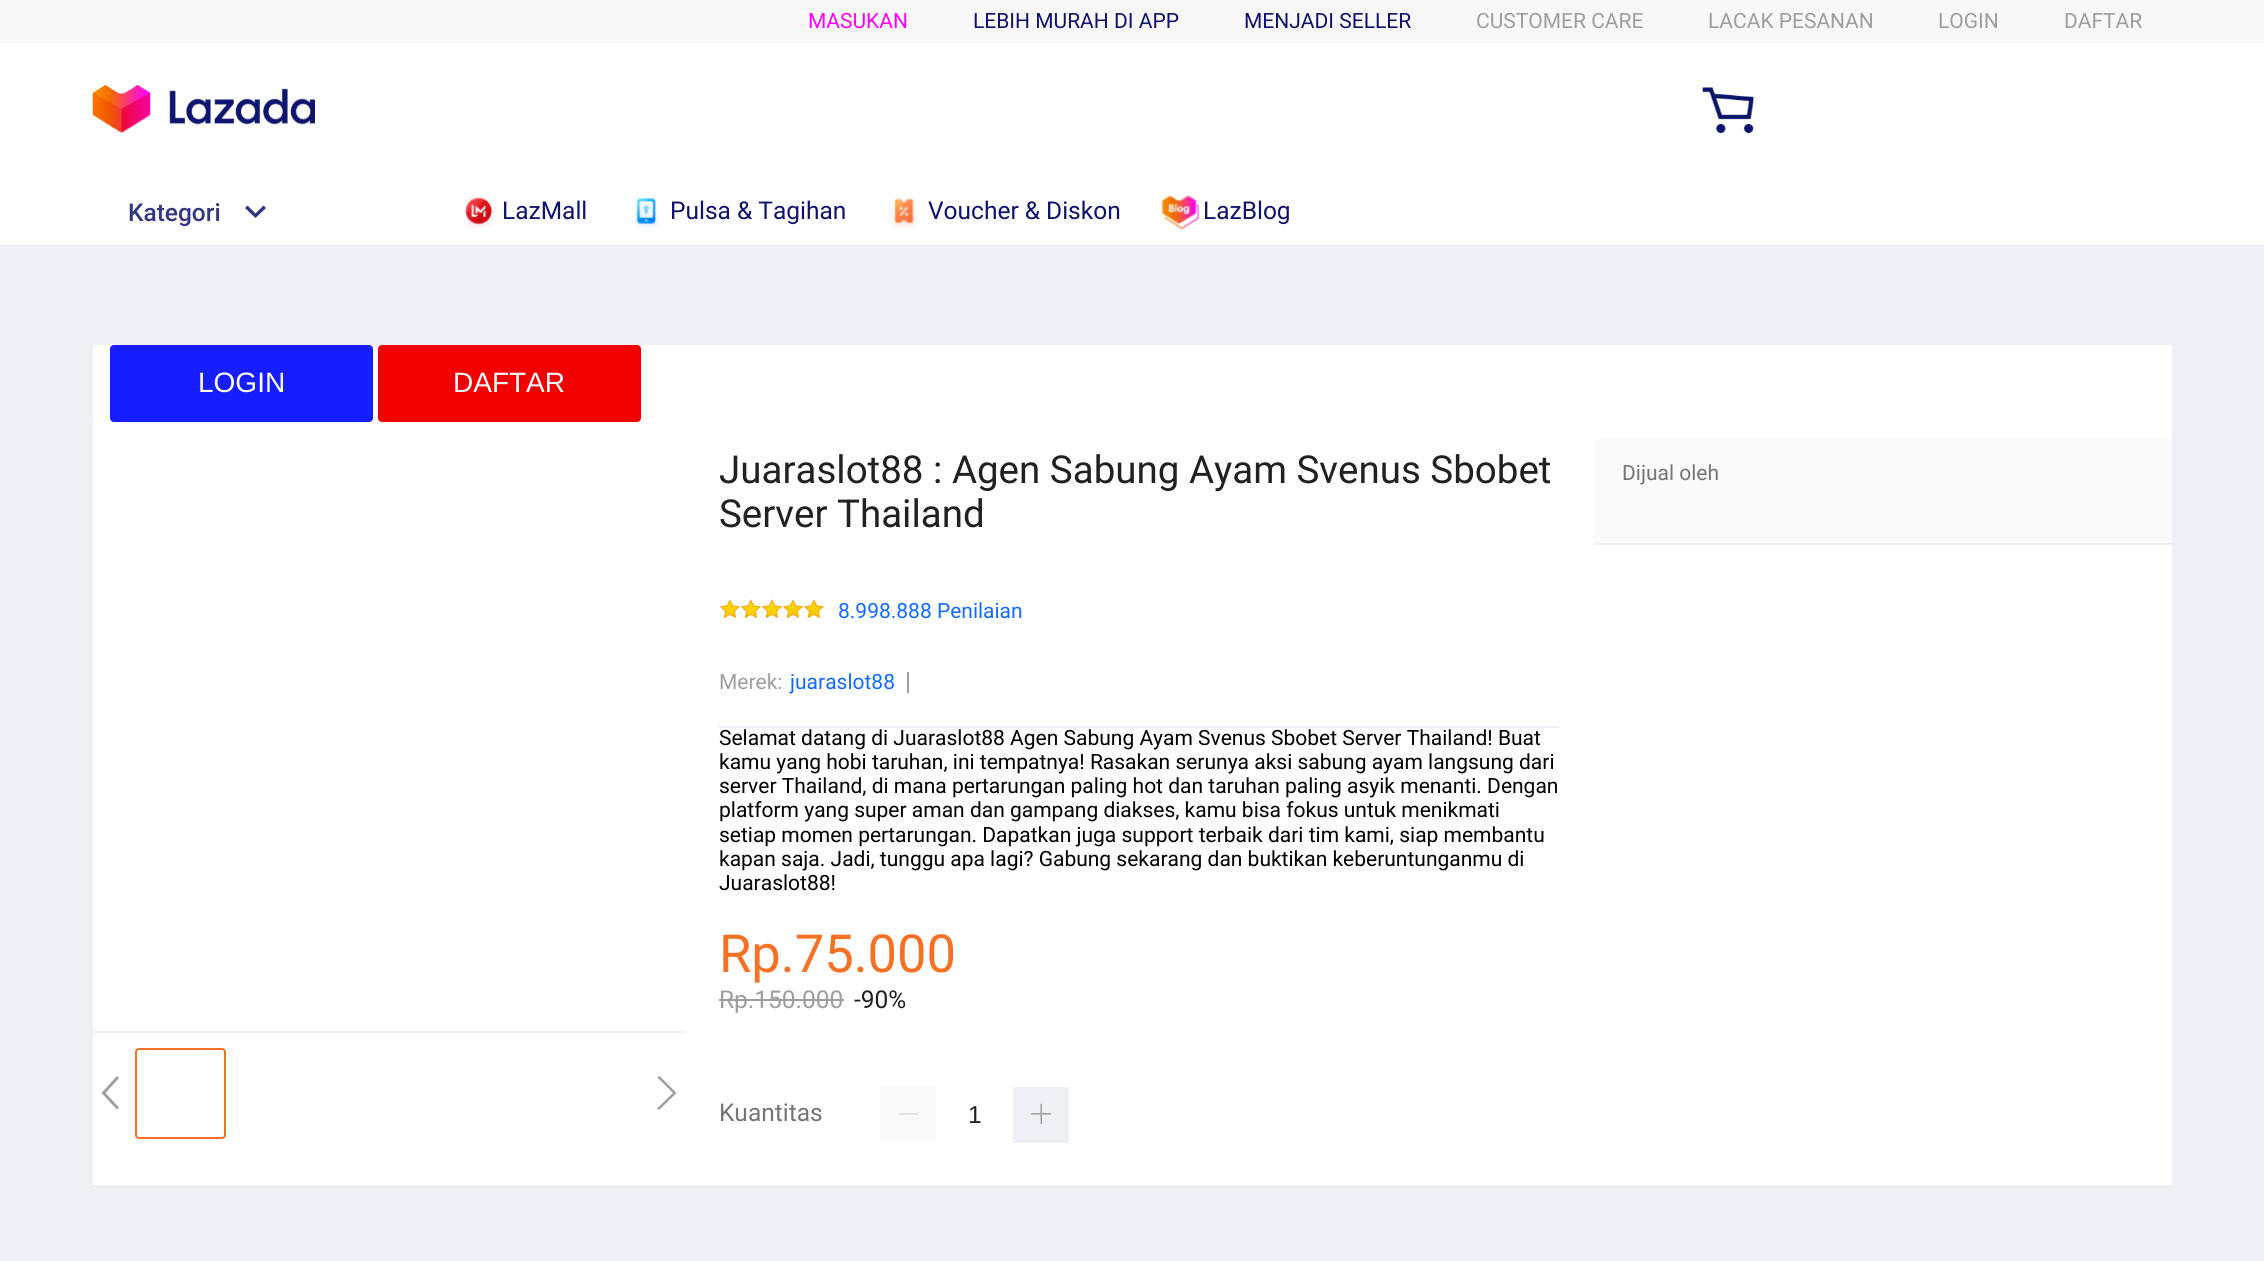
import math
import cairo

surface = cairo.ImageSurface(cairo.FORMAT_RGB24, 2264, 1261)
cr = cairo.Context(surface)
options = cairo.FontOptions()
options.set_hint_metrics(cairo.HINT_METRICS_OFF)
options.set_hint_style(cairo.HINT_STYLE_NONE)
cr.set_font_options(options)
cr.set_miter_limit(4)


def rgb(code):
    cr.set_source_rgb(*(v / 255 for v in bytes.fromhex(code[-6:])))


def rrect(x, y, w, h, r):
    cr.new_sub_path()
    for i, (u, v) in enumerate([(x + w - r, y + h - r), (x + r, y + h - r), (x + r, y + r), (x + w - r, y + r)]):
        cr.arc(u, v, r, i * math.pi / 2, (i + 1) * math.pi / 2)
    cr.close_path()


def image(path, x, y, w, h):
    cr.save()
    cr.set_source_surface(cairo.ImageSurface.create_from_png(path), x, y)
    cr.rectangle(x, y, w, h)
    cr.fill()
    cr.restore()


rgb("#eff0f5")
cr.paint()
rgb("#ffffff")
cr.rectangle(0, 44, 2264, 201)
cr.fill()
rgb("#f8f8f8")
cr.rectangle(0, 0, 2264, 44)
cr.fill()
image("img/1.png", 92, 85, 223, 48)
image("img/2.png", 1702, 87, 52, 46)
rgb("#333683")
cr.new_path()
cr.move_to(263.5, 205.5)
cr.line_to(266, 208)
cr.line_to(255.5, 218)
cr.line_to(245, 208)
cr.line_to(247.5, 205.5)
cr.line_to(255.5, 213.5)
cr.close_path()
cr.fill()
image("img/3.png", 463, 197, 30, 32)
image("img/4.png", 634, 197, 26, 32)
image("img/5.png", 891, 198, 27, 31)
image("img/6.png", 1161, 195, 38, 35)
rgb("#ffffff")
cr.rectangle(93, 345, 2079, 840)
cr.fill()
rgb("#161dff")
rrect(110, 345, 263, 77, 4)
cr.fill()
rgb("#f20000")
rrect(378, 345, 263, 77, 4)
cr.fill()
rgb("#eff0f5")
cr.rectangle(93, 1031, 591, 2)
cr.fill()
rgb("#9e9e9e")
cr.new_path()
cr.move_to(119, 1107.5)
cr.line_to(105.5, 1093)
cr.line_to(119, 1078)
cr.line_to(117, 1076)
cr.line_to(101.5, 1093)
cr.line_to(117, 1109.5)
cr.close_path()
cr.fill()
rrect(136, 1049, 89, 89, 3)
rgb("#f57224")
cr.stroke()
rgb("#9e9e9e")
cr.new_path()
cr.move_to(659, 1110)
cr.line_to(657, 1108.5)
cr.line_to(673, 1093)
cr.line_to(657.5, 1077.5)
cr.line_to(659.5, 1076)
cr.line_to(676.5, 1093)
cr.close_path()
cr.fill()
image("img/7.png", 720, 599, 21, 19)
image("img/7.png", 741, 599, 21, 19)
image("img/8.png", 762, 599, 21, 19)
image("img/8.png", 783, 599, 21, 19)
image("img/7.png", 804, 599, 21, 19)
for x, y, w, h, color in [
    (719, 726, 840, 2, "#eff0f5"),
    (907, 672, 2, 21, "#9e9e9e"),
    (719, 999, 125, 2, "#9e9e9e"),
    (880, 1087, 56, 56, "#fafafa"),
]:
    rgb(color)
    cr.rectangle(x, y, w, h)
    cr.fill()
image("img/9.png", 898, 1113, 21, 2)
rgb("#eff0f5")
cr.rectangle(1013, 1087, 56, 56)
cr.fill()
image("img/10.png", 1031, 1103, 21, 21)
rgb("#fafafa")
cr.rectangle(1594, 439, 578, 104)
cr.fill()
rgb("#eff0f5")
cr.rectangle(1594, 543, 578, 2)
cr.fill()
cr.select_font_face("Roboto")
cr.set_font_size(21)
rgb("#ff00ff")
cr.move_to(808, 28)
cr.show_text("MASUKAN")
rgb("#0f136d")
cr.move_to(973, 28)
cr.show_text("LEBIH MURAH DI APP")
cr.move_to(1244, 28)
cr.show_text("MENJADI SELLER")
rgb("#9e9e9e")
for x, y, s in [
    (1476, 28, "CUSTOMER CARE"),
    (1708, 28, "LACAK PESANAN"),
    (1938, 28, "LOGIN"),
    (2064, 28, "DAFTAR"),
]:
    cr.move_to(x, y)
    cr.show_text(s)
cr.select_font_face("Roboto Medium")
cr.set_font_size(24.5)
rgb("#333683")
cr.move_to(128, 221)
cr.show_text("Kategori")
cr.select_font_face("Roboto")
rgb("#0f136d")
for x, y, s in [
    (502, 219, "LazMall"),
    (670, 219, "Pulsa & Tagihan"),
    (928, 219, "Voucher & Diskon"),
    (1203, 219, "LazBlog"),
]:
    cr.move_to(x, y)
    cr.show_text(s)
cr.select_font_face("Liberation Sans")
cr.set_font_size(28)
rgb("#ffffff")
cr.move_to(198, 392)
cr.show_text("LOGIN")
cr.move_to(453, 392)
cr.show_text("DAFTAR")
cr.select_font_face("Roboto")
cr.set_font_size(38.5)
rgb("#212121")
cr.move_to(719, 483)
cr.show_text("Juaraslot88 : Agen Sabung Ayam Svenus Sbobet")
cr.move_to(719, 527)
cr.show_text("Server Thailand")
cr.set_font_size(21)
rgb("#136cff")
cr.move_to(838, 618)
cr.show_text("8.998.888 Penilaian")
rgb("#9e9e9e")
cr.move_to(719, 689)
cr.show_text("Merek:")
rgb("#136cff")
cr.move_to(790, 689)
cr.show_text("juaraslot88")
rgb("#000000")
for x, y, s in [
    (719, 745, "Selamat datang di Juaraslot88 Agen Sabung Ayam Svenus Sbobet Server Thailand! Buat"),
    (719, 769, "kamu yang hobi taruhan, ini tempatnya! Rasakan serunya aksi sabung ayam langsung dari"),
    (719, 793, "server Thailand, di mana pertarungan paling hot dan taruhan paling asyik menanti. Dengan"),
    (719, 817, "platform yang super aman dan gampang diakses, kamu bisa fokus untuk menikmati"),
    (719, 842, "setiap momen pertarungan. Dapatkan juga support terbaik dari tim kami, siap membantu"),
    (719, 866, "kapan saja. Jadi, tunggu apa lagi? Gabung sekarang dan buktikan keberuntunganmu di"),
    (719, 890, "Juaraslot88!"),
]:
    cr.move_to(x, y)
    cr.show_text(s)
cr.set_font_size(52.5)
rgb("#f57224")
cr.move_to(719, 972)
cr.show_text("Rp.75.000")
cr.set_font_size(24.5)
rgb("#9e9e9e")
cr.move_to(719, 1008)
cr.show_text("Rp.150.000")
rgb("#212121")
cr.move_to(854, 1008)
cr.show_text("-90%")
rgb("#757575")
cr.move_to(719, 1121)
cr.show_text("Kuantitas")
cr.select_font_face("Liberation Sans")
rgb("#212121")
cr.move_to(968, 1123)
cr.show_text("1")
cr.select_font_face("Roboto")
cr.set_font_size(21)
rgb("#757575")
cr.move_to(1622, 480)
cr.show_text("Dijual oleh")
surface.write_to_png("page.png")
